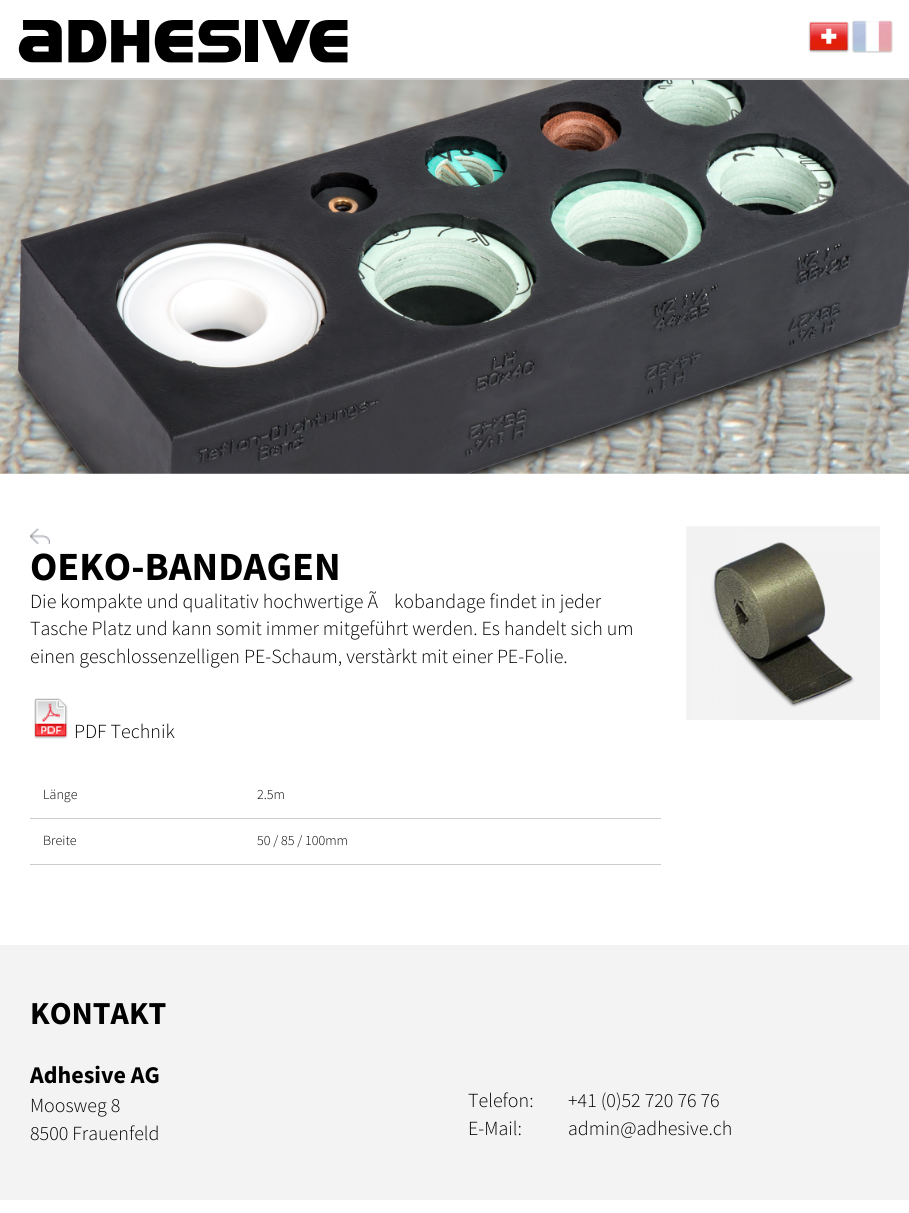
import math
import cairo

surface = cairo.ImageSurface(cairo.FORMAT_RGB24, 909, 1213)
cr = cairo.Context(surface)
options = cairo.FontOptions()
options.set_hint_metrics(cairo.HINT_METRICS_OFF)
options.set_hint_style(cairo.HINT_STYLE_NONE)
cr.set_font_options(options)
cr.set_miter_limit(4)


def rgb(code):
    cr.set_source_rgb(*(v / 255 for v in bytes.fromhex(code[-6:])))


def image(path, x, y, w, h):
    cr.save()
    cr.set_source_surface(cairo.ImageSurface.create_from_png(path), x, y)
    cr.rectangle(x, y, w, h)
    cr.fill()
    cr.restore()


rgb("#ffffff")
cr.paint()
rgb("#cccccc")
cr.rectangle(0, 78, 909, 2)
cr.fill()
image("img/1.png", 18, 20, 330, 43)
image("img/2.png", 808, 21, 41, 32)
image("img/3.png", 852, 20, 41, 33)
image("img/4.png", 0, 80, 909, 394)
image("img/5.png", 30, 528, 20, 17)
image("img/6.png", 34, 698, 34, 41)
cr.rectangle(30, 818, 631, 1)
cr.fill()
cr.rectangle(30, 864, 631, 1)
cr.fill()
image("img/7.png", 686, 526, 194, 194)
rgb("#f3f3f3")
cr.rectangle(0, 945, 909, 255)
cr.fill()
cr.select_font_face("Source Sans Pro", cairo.FONT_SLANT_NORMAL, cairo.FONT_WEIGHT_BOLD)
cr.set_font_size(40)
rgb("#000000")
cr.move_to(30, 580)
cr.show_text("OEKO-BANDAGEN")
cr.select_font_face("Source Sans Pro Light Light")
cr.set_font_size(20)
for x, y, s in [
    (30, 608, "Die kompakte und qualitativ hochwertige Ã"),
    (394, 608, "kobandage findet in jeder"),
    (30, 635, "Tasche Platz und kann somit immer mitgeführt werden. Es handelt sich um"),
    (30, 663, "einen geschlossenzelligen PE-Schaum, verstàrkt mit einer PE-Folie."),
    (74, 738, "PDF Technik"),
]:
    cr.move_to(x, y)
    cr.show_text(s)
cr.set_font_size(14)
for x, y, s in [
    (43, 799, "Länge"),
    (257, 799, "2.5m"),
    (43, 845, "Breite"),
    (257, 845, "50 / 85 / 100mm"),
]:
    cr.move_to(x, y)
    cr.show_text(s)
cr.select_font_face("Source Sans Pro", cairo.FONT_SLANT_NORMAL, cairo.FONT_WEIGHT_BOLD)
cr.set_font_size(32)
cr.move_to(30, 1024)
cr.show_text("KONTAKT")
cr.set_font_size(24)
cr.move_to(30, 1083)
cr.show_text("Adhesive AG")
cr.select_font_face("Source Sans Pro Light Light")
cr.set_font_size(20)
for x, y, s in [
    (30, 1112, "Moosweg 8"),
    (30, 1140, "8500 Frauenfeld"),
    (468, 1107, "Telefon:"),
    (568, 1107, "+41 (0)52 720 76 76"),
    (468, 1135, "E-Mail:"),
    (568, 1135, "admin@adhesive.ch"),
]:
    cr.move_to(x, y)
    cr.show_text(s)
surface.write_to_png("page.png")
